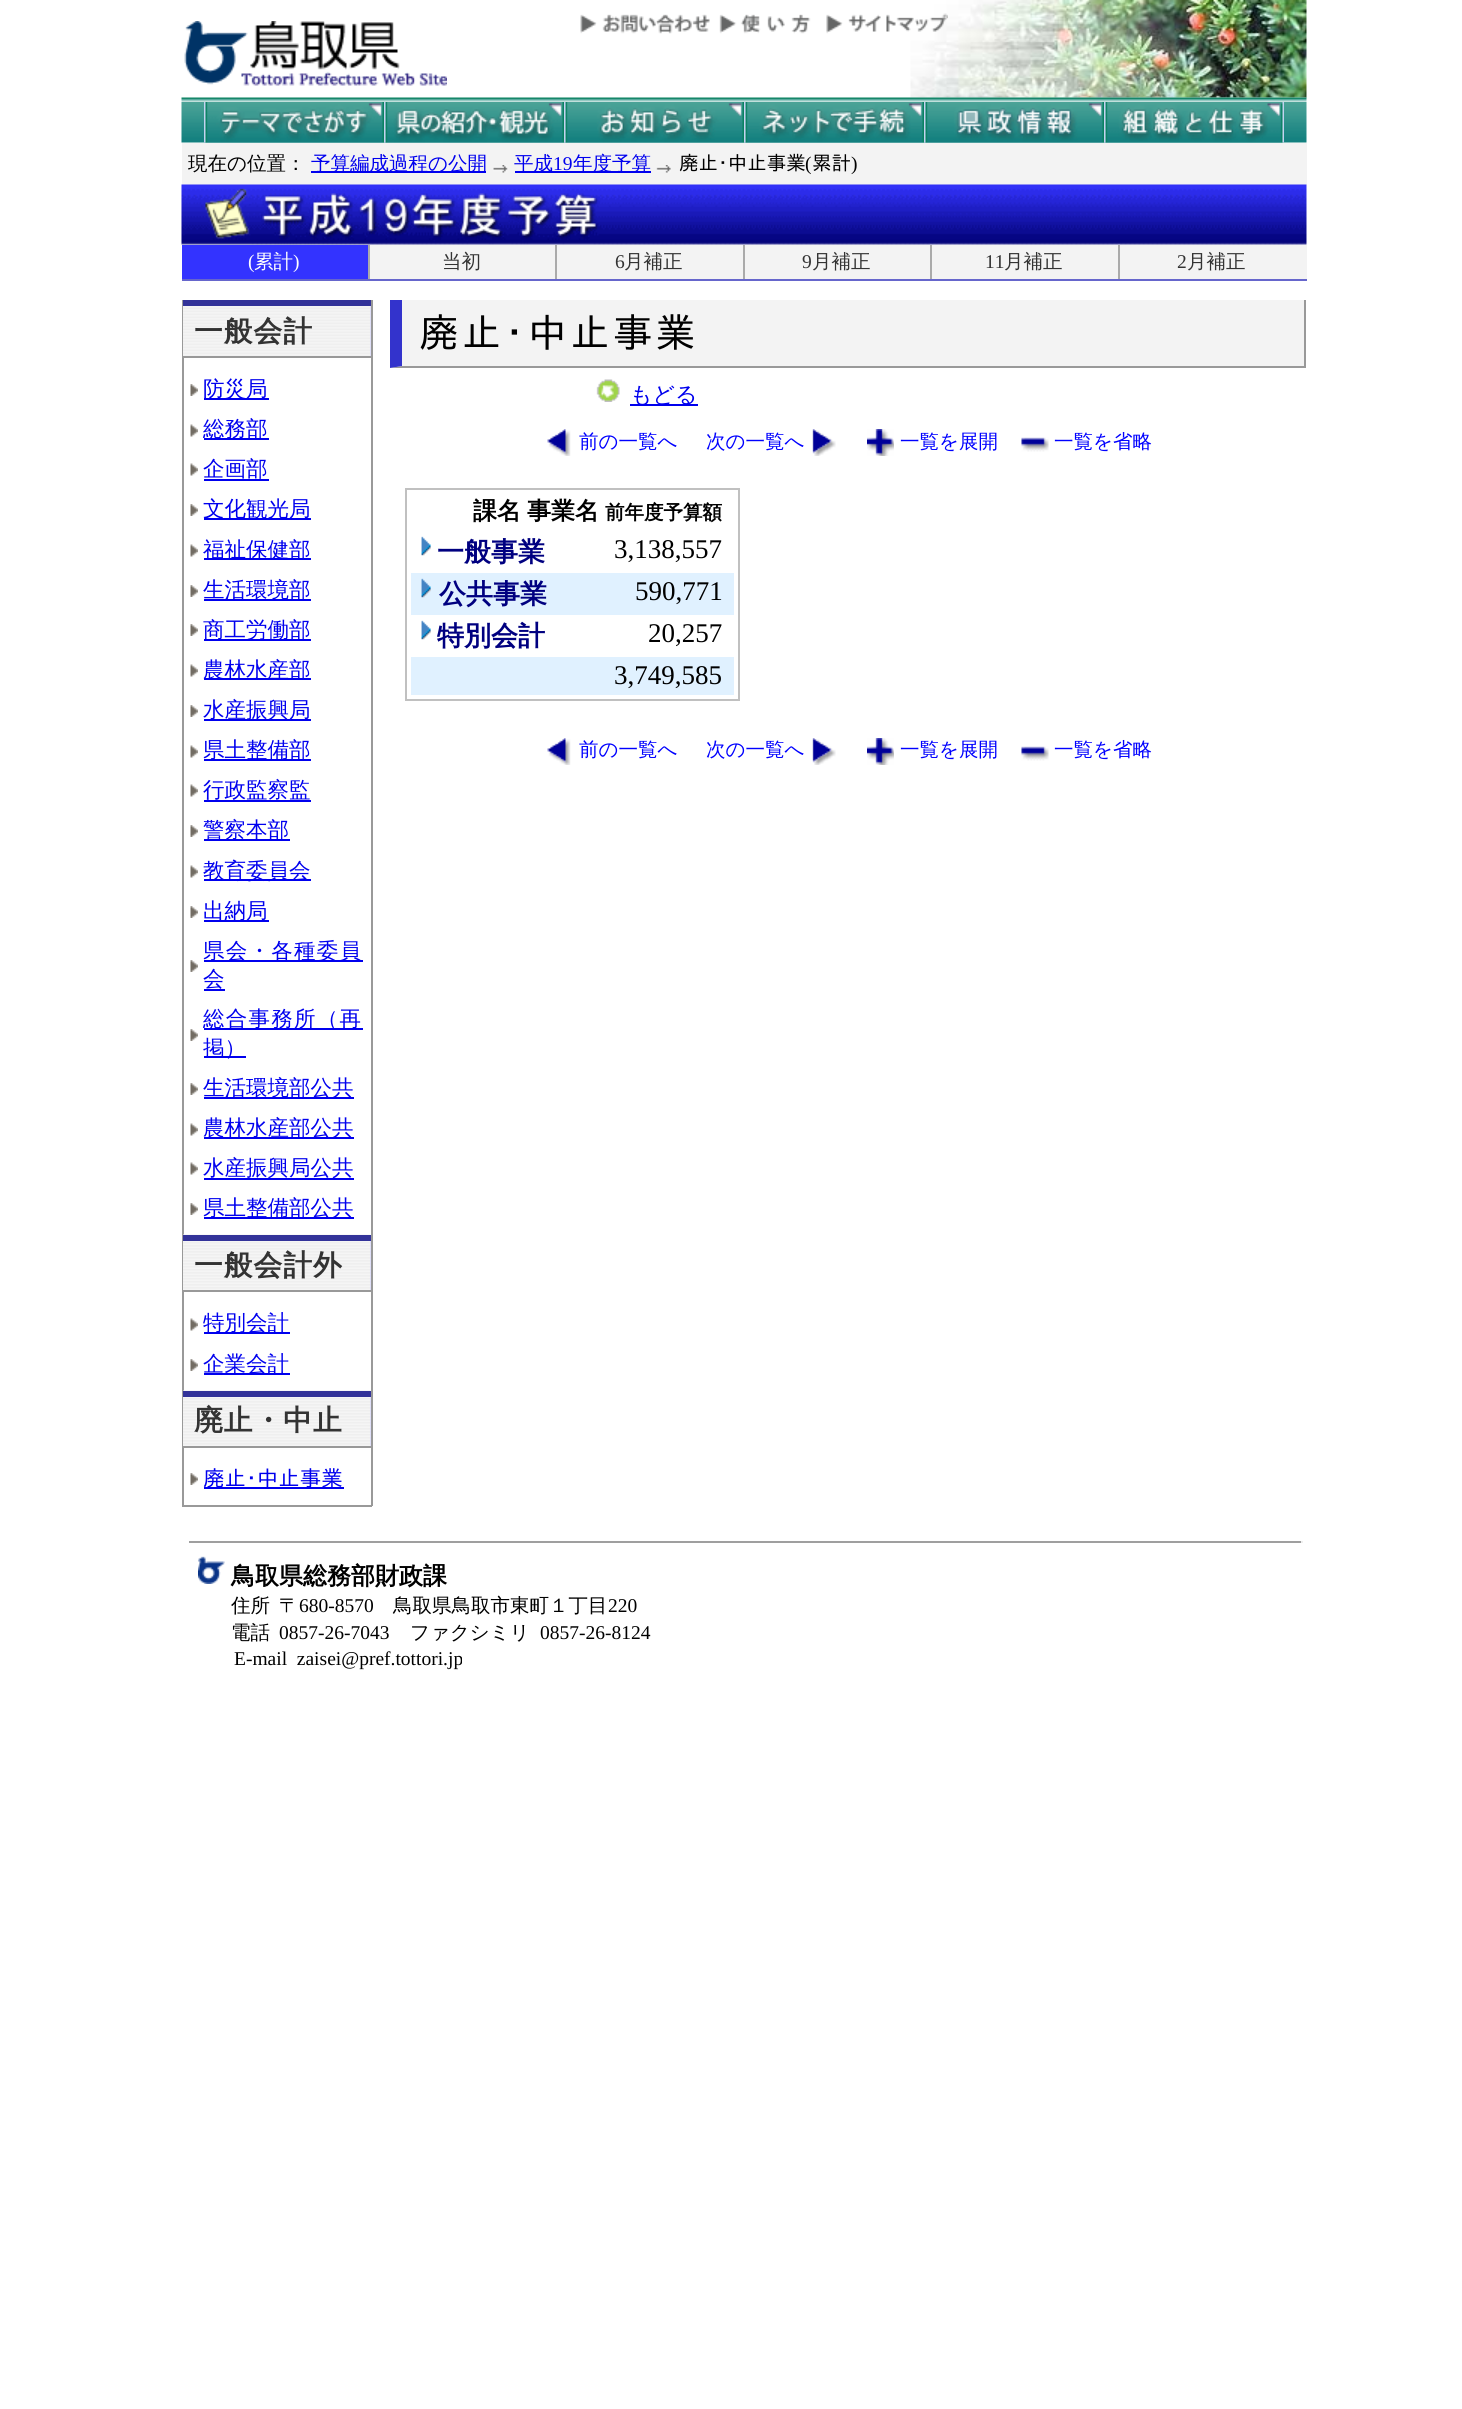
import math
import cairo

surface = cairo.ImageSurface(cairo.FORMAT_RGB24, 1462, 2409)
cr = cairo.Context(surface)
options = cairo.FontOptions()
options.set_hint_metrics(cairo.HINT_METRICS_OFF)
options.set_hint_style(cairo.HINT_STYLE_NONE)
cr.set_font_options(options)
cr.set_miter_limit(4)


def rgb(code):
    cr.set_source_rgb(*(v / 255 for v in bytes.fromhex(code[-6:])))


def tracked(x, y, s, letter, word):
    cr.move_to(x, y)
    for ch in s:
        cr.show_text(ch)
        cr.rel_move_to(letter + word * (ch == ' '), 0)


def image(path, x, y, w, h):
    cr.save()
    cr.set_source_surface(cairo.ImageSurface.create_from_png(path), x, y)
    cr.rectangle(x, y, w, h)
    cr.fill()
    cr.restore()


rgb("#ffffff")
cr.paint()
image("img/1.png", 910, 0, 397, 98)
image("img/2.png", 184, 21, 263, 65)
image("img/3.png", 580, 14, 130, 20)
image("img/4.png", 719, 14, 92, 20)
image("img/5.png", 826, 13, 122, 21)
image("img/6.png", 181, 97, 1126, 5)
image("img/7.png", 181, 102, 1126, 41)
image("img/8.png", 204, 102, 180, 41)
image("img/9.png", 384, 102, 180, 41)
image("img/10.png", 564, 102, 180, 41)
image("img/11.png", 744, 102, 180, 41)
image("img/12.png", 924, 102, 180, 41)
image("img/13.png", 1104, 102, 180, 41)
rgb("#f3f3f3")
cr.rectangle(182, 143, 1125, 42)
cr.fill()
rgb("#0000ee")
cr.rectangle(311, 171, 175, 2)
cr.fill()
image("img/14.png", 493, 165, 15, 8)
cr.rectangle(515, 171, 136, 2)
cr.fill()
image("img/15.png", 656, 165, 15, 8)
image("img/16.png", 181, 184, 1126, 61)
for x, y, w, h, color in [
    (370, 245, 937, 34, "#f3f3f3"),
    (182, 279, 1125, 2, "#6666cc"),
    (182, 245, 186, 34, "#3333ff"),
    (368, 245, 2, 34, "#aaaaaa"),
    (555, 245, 2, 34, "#aaaaaa"),
    (743, 245, 2, 34, "#aaaaaa"),
    (930, 245, 2, 34, "#aaaaaa"),
    (1118, 245, 2, 34, "#aaaaaa"),
    (371, 300, 2, 1206, "#999999"),
    (182, 1505, 190, 2, "#999999"),
    (182, 300, 2, 1206, "#999999"),
    (370, 306, 1, 50, "#ccccff"),
]:
    rgb(color)
    cr.rectangle(x, y, w, h)
    cr.fill()
image("img/17.png", 183, 306, 188, 50)
rgb("#333399")
cr.rectangle(183, 300, 188, 6)
cr.fill()
rgb("#999999")
cr.rectangle(183, 356, 188, 2)
cr.fill()
image("img/18.png", 190, 384, 8, 12)
rgb("#0000ee")
cr.rectangle(204, 398, 65, 2)
cr.fill()
image("img/19.png", 190, 424, 8, 13)
cr.rectangle(204, 438, 65, 2)
cr.fill()
image("img/19.png", 190, 463, 8, 13)
cr.rectangle(204, 479, 65, 2)
cr.fill()
image("img/18.png", 190, 504, 8, 12)
cr.rectangle(204, 518, 107, 2)
cr.fill()
image("img/19.png", 190, 544, 8, 13)
cr.rectangle(204, 558, 107, 2)
cr.fill()
image("img/18.png", 190, 585, 8, 12)
cr.rectangle(204, 599, 107, 2)
cr.fill()
image("img/18.png", 190, 624, 8, 12)
cr.rectangle(204, 639, 107, 2)
cr.fill()
image("img/19.png", 190, 664, 8, 13)
cr.rectangle(204, 678, 107, 2)
cr.fill()
image("img/18.png", 190, 705, 8, 12)
cr.rectangle(204, 719, 107, 2)
cr.fill()
image("img/19.png", 190, 745, 8, 13)
cr.rectangle(204, 759, 107, 2)
cr.fill()
image("img/19.png", 190, 784, 8, 13)
cr.rectangle(204, 800, 107, 2)
cr.fill()
image("img/18.png", 190, 825, 8, 12)
cr.rectangle(204, 839, 86, 2)
cr.fill()
image("img/19.png", 190, 865, 8, 13)
cr.rectangle(204, 879, 107, 2)
cr.fill()
image("img/18.png", 190, 906, 8, 12)
cr.rectangle(204, 920, 65, 2)
cr.fill()
image("img/18.png", 190, 960, 8, 12)
cr.rectangle(204, 960, 159, 2)
cr.fill()
cr.rectangle(204, 989, 21, 2)
cr.fill()
image("img/18.png", 190, 1029, 8, 12)
cr.rectangle(204, 1028, 159, 2)
cr.fill()
cr.rectangle(204, 1056, 42, 2)
cr.fill()
image("img/18.png", 190, 1083, 8, 12)
cr.rectangle(204, 1097, 150, 2)
cr.fill()
image("img/19.png", 190, 1123, 8, 13)
cr.rectangle(204, 1137, 150, 2)
cr.fill()
image("img/19.png", 190, 1162, 8, 13)
cr.rectangle(204, 1178, 150, 2)
cr.fill()
image("img/18.png", 190, 1203, 8, 12)
cr.rectangle(204, 1217, 150, 2)
cr.fill()
rgb("#ccccff")
cr.rectangle(370, 1241, 1, 49)
cr.fill()
image("img/20.png", 183, 1234, 188, 56)
rgb("#333399")
cr.rectangle(183, 1235, 188, 6)
cr.fill()
rgb("#999999")
cr.rectangle(183, 1290, 188, 2)
cr.fill()
image("img/19.png", 190, 1318, 8, 13)
rgb("#0000ee")
cr.rectangle(204, 1332, 86, 2)
cr.fill()
image("img/18.png", 190, 1359, 8, 12)
cr.rectangle(204, 1373, 86, 2)
cr.fill()
rgb("#ccccff")
cr.rectangle(370, 1397, 1, 49)
cr.fill()
image("img/20.png", 183, 1390, 188, 56)
rgb("#333399")
cr.rectangle(183, 1391, 188, 6)
cr.fill()
rgb("#999999")
cr.rectangle(183, 1446, 188, 2)
cr.fill()
image("img/18.png", 190, 1473, 8, 12)
for x, y, w, h, color in [
    (204, 1487, 140, 2, "#0000ee"),
    (390, 300, 914, 68, "#f3f3f3"),
    (1304, 300, 2, 68, "#999999"),
]:
    rgb(color)
    cr.rectangle(x, y, w, h)
    cr.fill()
cr.new_path()
cr.move_to(1305, 368)
cr.line_to(390, 368)
cr.line_to(402, 366)
cr.line_to(1304, 366)
cr.close_path()
cr.fill()
rgb("#3333cc")
cr.new_path()
cr.move_to(390, 368)
cr.line_to(390, 300)
cr.line_to(402, 300)
cr.line_to(402, 366)
cr.close_path()
cr.fill()
image("img/21.png", 596, 379, 24, 23)
rgb("#0000ee")
cr.rectangle(630, 404, 68, 2)
cr.fill()
image("img/22.png", 547, 429, 24, 27)
image("img/23.png", 812, 429, 24, 27)
image("img/24.png", 867, 429, 27, 27)
image("img/25.png", 1021, 437, 28, 15)
cr.rectangle(406, 489, 333, 211)
rgb("#c0c0c0")
cr.stroke()
image("img/26.png", 421, 536, 10, 20)
rgb("#e0f1ff")
cr.rectangle(411, 573, 323, 42)
cr.fill()
image("img/27.png", 421, 578, 10, 20)
image("img/26.png", 421, 620, 10, 20)
cr.rectangle(411, 657, 323, 38)
cr.fill()
image("img/22.png", 547, 738, 24, 27)
image("img/23.png", 812, 738, 24, 27)
image("img/24.png", 867, 738, 27, 27)
image("img/25.png", 1021, 746, 28, 15)
rgb("#9f9f9f")
cr.rectangle(189, 1541, 1113, 2)
cr.fill()
rgb("#eeeeee")
cr.rectangle(1301, 1541, 2, 2)
cr.fill()
image("img/28.png", 198, 1556, 27, 28)
cr.select_font_face("WenQuanYi Zen Hei Medium")
cr.set_font_size(19.5)
rgb("#000000")
cr.move_to(188, 170)
cr.show_text("現在の位置：")
rgb("#0000ee")
cr.move_to(311, 170)
cr.show_text("予算編成過程の公開")
cr.move_to(514, 170)
cr.show_text("平成")
cr.select_font_face("Liberation Serif")
cr.move_to(553, 170)
cr.show_text("19")
cr.select_font_face("WenQuanYi Zen Hei Medium")
cr.move_to(573, 170)
cr.show_text("年度予算")
cr.select_font_face("IPAGothic")
rgb("#000000")
cr.move_to(679, 170)
cr.show_text("廃止･中止事業")
cr.select_font_face("Liberation Serif")
cr.move_to(805, 170)
cr.show_text("(")
cr.select_font_face("IPAGothic")
cr.move_to(812, 170)
cr.show_text("累計")
cr.select_font_face("Liberation Serif")
cr.move_to(851, 170)
cr.show_text(")")
rgb("#ffffff")
cr.move_to(248, 268)
cr.show_text("(")
cr.select_font_face("WenQuanYi Zen Hei Medium")
cr.move_to(254, 268)
cr.show_text("累計")
cr.select_font_face("Liberation Serif")
cr.move_to(293, 268)
cr.show_text(")")
cr.select_font_face("WenQuanYi Zen Hei Medium")
rgb("#333333")
cr.move_to(442, 268)
cr.show_text("当初")
cr.select_font_face("Liberation Serif")
cr.move_to(615, 268)
cr.show_text("6")
cr.select_font_face("WenQuanYi Zen Hei Medium")
cr.move_to(624, 268)
cr.show_text("月補正")
cr.select_font_face("Liberation Serif")
cr.move_to(802, 268)
cr.show_text("9")
cr.select_font_face("WenQuanYi Zen Hei Medium")
cr.move_to(812, 268)
cr.show_text("月補正")
cr.select_font_face("Liberation Serif")
cr.move_to(985, 268)
cr.show_text("11")
cr.select_font_face("WenQuanYi Zen Hei Medium")
cr.move_to(1004, 268)
cr.show_text("月補正")
cr.select_font_face("Liberation Serif")
cr.move_to(1177, 268)
cr.show_text("2")
cr.select_font_face("WenQuanYi Zen Hei Medium")
cr.move_to(1187, 268)
cr.show_text("月補正")
cr.select_font_face("WenQuanYi Zen Hei", cairo.FONT_SLANT_NORMAL, cairo.FONT_WEIGHT_BOLD)
cr.set_font_size(28.75)
tracked(194, 341, "一般会計", 1, 0)
cr.select_font_face("WenQuanYi Zen Hei Medium")
cr.set_font_size(21.5)
rgb("#0000ee")
for x, y, s in [
    (203, 396, "防災局"),
    (203, 436, "総務部"),
    (203, 476, "企画部"),
    (203, 516, "文化観光局"),
    (203, 557, "福祉保健部"),
    (203, 597, "生活環境部"),
    (203, 637, "商工労働部"),
    (203, 677, "農林水産部"),
    (203, 717, "水産振興局"),
    (203, 757, "県土整備部"),
    (203, 797, "行政監察監"),
    (203, 837, "警察本部"),
    (203, 878, "教育委員会"),
    (203, 918, "出納局"),
]:
    cr.move_to(x, y)
    cr.show_text(s)
tracked(203, 958, "県会・各種委員", 1.25, 0)
cr.move_to(203, 986)
cr.show_text("会")
tracked(203, 1026, "総合事務所（再", 1.25, 0)
for x, y, s in [
    (203, 1055, "掲）"),
    (203, 1095, "生活環境部公共"),
    (203, 1135, "農林水産部公共"),
    (203, 1175, "水産振興局公共"),
    (203, 1215, "県土整備部公共"),
]:
    cr.move_to(x, y)
    cr.show_text(s)
cr.select_font_face("WenQuanYi Zen Hei", cairo.FONT_SLANT_NORMAL, cairo.FONT_WEIGHT_BOLD)
cr.set_font_size(28.75)
rgb("#333333")
tracked(194, 1275, "一般会計外", 1, 0)
cr.select_font_face("WenQuanYi Zen Hei Medium")
cr.set_font_size(21.5)
rgb("#0000ee")
cr.move_to(203, 1330)
cr.show_text("特別会計")
cr.move_to(203, 1371)
cr.show_text("企業会計")
cr.select_font_face("WenQuanYi Zen Hei", cairo.FONT_SLANT_NORMAL, cairo.FONT_WEIGHT_BOLD)
cr.set_font_size(28.75)
rgb("#333333")
tracked(194, 1430, "廃止・中止", 1, 0)
cr.select_font_face("IPAGothic")
cr.set_font_size(21.5)
rgb("#0000ee")
cr.move_to(203, 1486)
cr.show_text("廃止･中止事業")
cr.set_font_size(39.5)
rgb("#000000")
tracked(419, 347, "廃止･中止事業", 3.25, 0)
cr.select_font_face("WenQuanYi Zen Hei Medium")
cr.set_font_size(22)
rgb("#0000ee")
cr.move_to(630, 402)
cr.show_text("もどる")
cr.set_font_size(19.5)
rgb("#0000ff")
for x, y, s in [
    (579, 448, "前の一覧へ"),
    (706, 448, "次の一覧へ"),
    (900, 448, "一覧を展開"),
    (1054, 448, "一覧を省略"),
]:
    cr.move_to(x, y)
    cr.show_text(s)
cr.select_font_face("WenQuanYi Zen Hei", cairo.FONT_SLANT_NORMAL, cairo.FONT_WEIGHT_BOLD)
cr.set_font_size(24)
rgb("#000000")
cr.move_to(473, 519)
cr.show_text("課名")
cr.move_to(527, 519)
cr.show_text("事業名")
cr.set_font_size(19.5)
cr.move_to(605, 519)
cr.show_text("前年度予算額")
cr.set_font_size(27)
rgb("#000080")
cr.move_to(437, 561)
cr.show_text("一般事業")
cr.select_font_face("Liberation Serif")
rgb("#000000")
cr.move_to(614, 558)
cr.show_text("3,138,557")
cr.select_font_face("WenQuanYi Zen Hei", cairo.FONT_SLANT_NORMAL, cairo.FONT_WEIGHT_BOLD)
rgb("#000080")
cr.move_to(439, 603)
cr.show_text("公共事業")
cr.select_font_face("Liberation Serif")
rgb("#000000")
cr.move_to(635, 600)
cr.show_text("590,771")
cr.select_font_face("WenQuanYi Zen Hei", cairo.FONT_SLANT_NORMAL, cairo.FONT_WEIGHT_BOLD)
rgb("#000080")
cr.move_to(437, 645)
cr.show_text("特別会計")
cr.select_font_face("Liberation Serif")
rgb("#000000")
cr.move_to(648, 642)
cr.show_text("20,257")
cr.move_to(614, 684)
cr.show_text("3,749,585")
cr.select_font_face("WenQuanYi Zen Hei Medium")
cr.set_font_size(19.5)
rgb("#0000ff")
for x, y, s in [
    (579, 756, "前の一覧へ"),
    (706, 756, "次の一覧へ"),
    (900, 756, "一覧を展開"),
    (1054, 756, "一覧を省略"),
]:
    cr.move_to(x, y)
    cr.show_text(s)
cr.select_font_face("WenQuanYi Zen Hei", cairo.FONT_SLANT_NORMAL, cairo.FONT_WEIGHT_BOLD)
cr.set_font_size(24)
rgb("#000000")
cr.move_to(231, 1584)
cr.show_text("鳥取県総務部財政課")
cr.select_font_face("WenQuanYi Zen Hei Medium")
cr.set_font_size(19.5)
cr.move_to(231, 1612)
cr.show_text("住所")
cr.move_to(279, 1612)
cr.show_text("〒")
cr.select_font_face("Liberation Serif")
cr.move_to(299, 1612)
cr.show_text("680-8570")
cr.select_font_face("WenQuanYi Zen Hei Medium")
cr.move_to(393, 1612)
cr.show_text("鳥取県鳥取市東町１丁目")
cr.select_font_face("Liberation Serif")
cr.move_to(608, 1612)
cr.show_text("220")
cr.select_font_face("WenQuanYi Zen Hei Medium")
cr.move_to(231, 1639)
cr.show_text("電話")
cr.select_font_face("Liberation Serif")
cr.move_to(279, 1639)
cr.show_text("0857-26-7043")
cr.select_font_face("WenQuanYi Zen Hei Medium")
cr.move_to(410, 1639)
cr.show_text("ファクシミリ")
cr.select_font_face("Liberation Serif")
cr.move_to(540, 1639)
cr.show_text("0857-26-8124")
cr.move_to(234, 1665)
cr.show_text("E-mail  zaisei@pref.tottori.jp")
surface.write_to_png("page.png")
